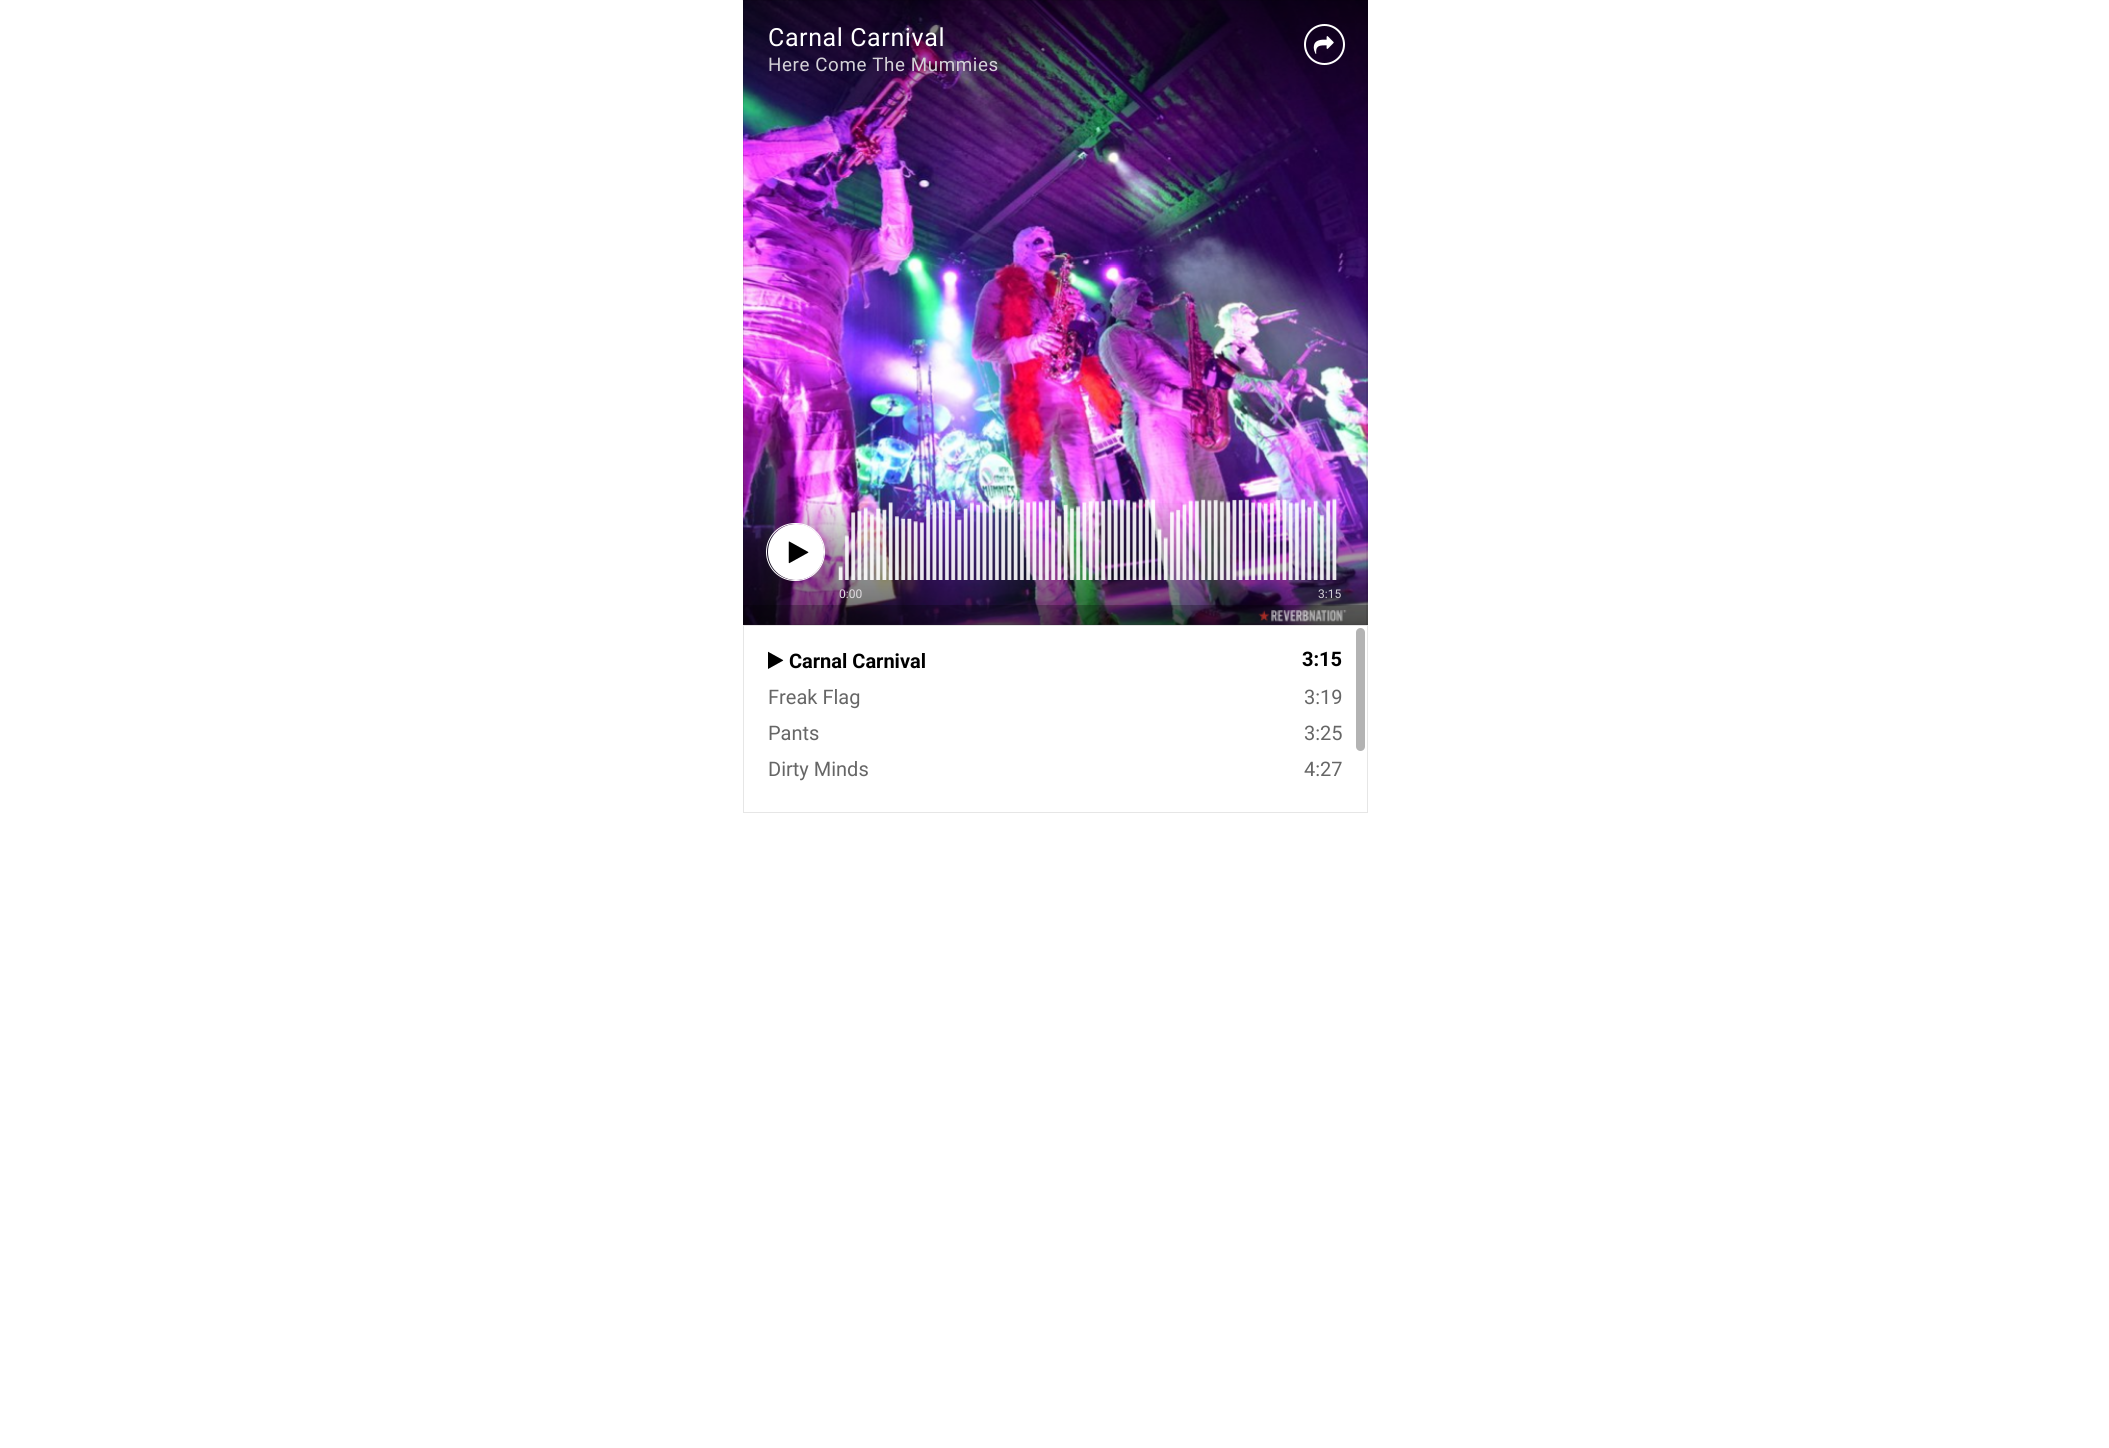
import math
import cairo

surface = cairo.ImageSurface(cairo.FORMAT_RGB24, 2109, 1448)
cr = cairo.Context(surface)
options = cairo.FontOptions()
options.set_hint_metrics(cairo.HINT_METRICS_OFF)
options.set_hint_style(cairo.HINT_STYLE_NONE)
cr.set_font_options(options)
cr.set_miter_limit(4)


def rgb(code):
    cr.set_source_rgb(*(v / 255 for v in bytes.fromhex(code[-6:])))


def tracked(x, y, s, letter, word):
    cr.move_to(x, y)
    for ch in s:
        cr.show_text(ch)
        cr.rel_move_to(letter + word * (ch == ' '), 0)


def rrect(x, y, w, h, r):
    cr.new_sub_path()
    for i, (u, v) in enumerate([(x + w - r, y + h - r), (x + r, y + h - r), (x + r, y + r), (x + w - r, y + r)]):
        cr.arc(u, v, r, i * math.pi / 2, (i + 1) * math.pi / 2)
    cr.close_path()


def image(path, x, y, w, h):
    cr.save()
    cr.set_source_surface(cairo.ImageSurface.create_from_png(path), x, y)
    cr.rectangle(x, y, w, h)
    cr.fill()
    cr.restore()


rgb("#ffffff")
cr.paint()
image("img/2.png", 743, 624, 625, 1)
image("img/1.png", 743, 0, 625, 625)
cr.set_source_rgba(0, 0, 0, 0.1)
cr.new_path()
cr.move_to(742, 0)
cr.line_to(1368, 0)
cr.line_to(1366, 1)
cr.line_to(744, 1)
cr.close_path()
cr.fill()
gradient = cairo.LinearGradient(1055, 500, 1055, 625)
gradient.add_color_stop_rgba(0, 0, 0, 0, 0)
gradient.add_color_stop_rgba(0.5, 0, 0, 0, 0.4)
gradient.add_color_stop_rgba(1, 0, 0, 0, 0.6)
cr.set_source(gradient)
cr.rectangle(743, 503, 625, 122)
cr.fill()
cr.set_source_rgba(0, 0, 0, 0.1)
cr.new_path()
cr.move_to(1368, 0)
cr.line_to(1368, 625)
cr.line_to(1366, 625)
cr.line_to(1366, 1)
cr.close_path()
cr.fill()
cr.save()
cr.rectangle(743, 0, 625, 625)
cr.clip()
cr.new_path()
cr.move_to(742, 625)
cr.line_to(742, 0)
cr.line_to(744, 1)
cr.line_to(744, 625)
cr.close_path()
cr.fill()
cr.restore()
cr.arc(1324.5, 44.5, 19.5, 0, 2 * math.pi)
rgb("#ffffff")
cr.stroke()
image("img/3.png", 1313, 36, 21, 18)
image("img/4.png", 838, 498, 499, 82)
rrect(766.5, 523.5, 58, 57, 28.5)
cr.set_line_width(1)
cr.stroke()
cr.arc(796, 552, 28, 0, 2 * math.pi)
cr.fill()
image("img/5.png", 788, 541, 21, 23)
cr.set_source_rgba(0, 0, 0, 0.25)
cr.rectangle(743, 605, 625, 20)
cr.fill()
image("img/6.png", 1258, 610, 89, 12)
cr.rectangle(743.5, 625.5, 624, 187)
rgb("#e6e6e6")
cr.stroke()
image("img/7.png", 768, 651, 16, 18)
rgb("#b3b3b3")
rrect(1356, 628, 9, 123, 4.5)
cr.fill()
cr.select_font_face("Roboto")
cr.set_font_size(25)
rgb("#ffffff")
tracked(768, 46, "Carnal Carnival", 0.6, 0)
cr.set_font_size(18.75)
rgb("#d4d2d8")
tracked(768, 71, "Here Come The Mummies", 0.6, 0)
cr.set_font_size(12)
rgb("#e2dee2")
cr.move_to(839, 598)
cr.show_text("0:00")
rgb("#d4d2d8")
cr.move_to(1318, 598)
cr.show_text("3:15")
cr.select_font_face("Roboto", cairo.FONT_SLANT_NORMAL, cairo.FONT_WEIGHT_BOLD)
cr.set_font_size(20)
rgb("#000000")
cr.move_to(789, 668)
cr.show_text("Carnal Carnival")
cr.move_to(1302, 666)
cr.show_text("3:15")
cr.select_font_face("Roboto")
rgb("#666666")
for x, y, s in [
    (768, 704, "Freak Flag"),
    (1304, 704, "3:19"),
    (768, 740, "Pants"),
    (1304, 740, "3:25"),
    (768, 776, "Dirty Minds"),
    (1304, 776, "4:27"),
]:
    cr.move_to(x, y)
    cr.show_text(s)
surface.write_to_png("page.png")
